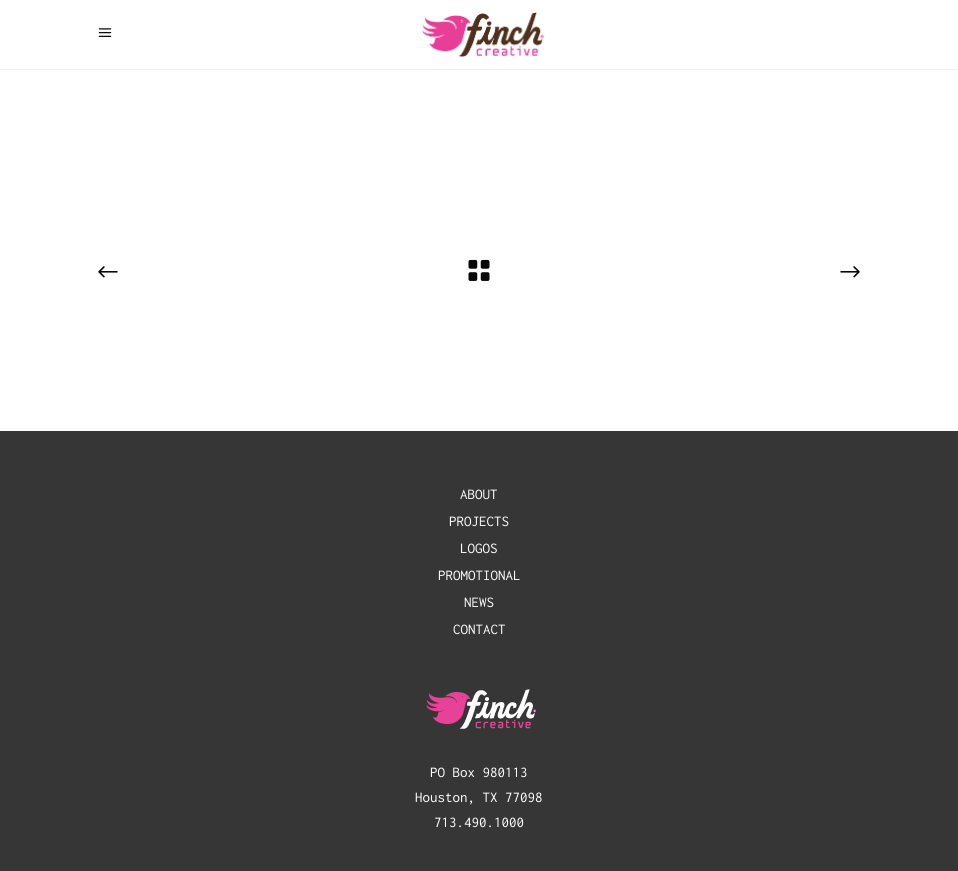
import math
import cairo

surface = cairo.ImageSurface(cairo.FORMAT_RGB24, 958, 871)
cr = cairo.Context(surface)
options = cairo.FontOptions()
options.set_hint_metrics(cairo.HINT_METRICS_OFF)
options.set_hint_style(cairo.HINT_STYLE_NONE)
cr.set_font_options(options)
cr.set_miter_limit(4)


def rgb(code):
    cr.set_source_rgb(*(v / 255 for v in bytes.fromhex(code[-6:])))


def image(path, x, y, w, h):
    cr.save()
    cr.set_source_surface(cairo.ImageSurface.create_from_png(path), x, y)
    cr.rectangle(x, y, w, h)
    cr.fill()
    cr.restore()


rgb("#ffffff")
cr.paint()
rgb("#ededed")
cr.rectangle(0, 69, 958, 1)
cr.fill()
image("img/1.png", 98, 28, 14, 9)
image("img/2.png", 422, 12, 123, 46)
image("img/3.png", 98, 266, 20, 12)
image("img/4.png", 468, 259, 22, 22)
image("img/5.png", 840, 266, 20, 12)
rgb("#363636")
cr.rectangle(0, 431, 958, 440)
cr.fill()
image("img/6.png", 426, 689, 110, 40)
cr.select_font_face("Inconsolata")
cr.set_font_size(15)
rgb("#ffffff")
for x, y, s in [
    (460, 499, "ABOUT"),
    (449, 526, "PROJECTS"),
    (460, 553, "LOGOS"),
    (438, 580, "PROMOTIONAL"),
    (464, 607, "NEWS"),
    (453, 634, "CONTACT"),
    (430, 777, "PO Box 980113"),
    (415, 802, "Houston, TX 77098"),
    (434, 827, "713.490.1000"),
]:
    cr.move_to(x, y)
    cr.show_text(s)
surface.write_to_png("page.png")
